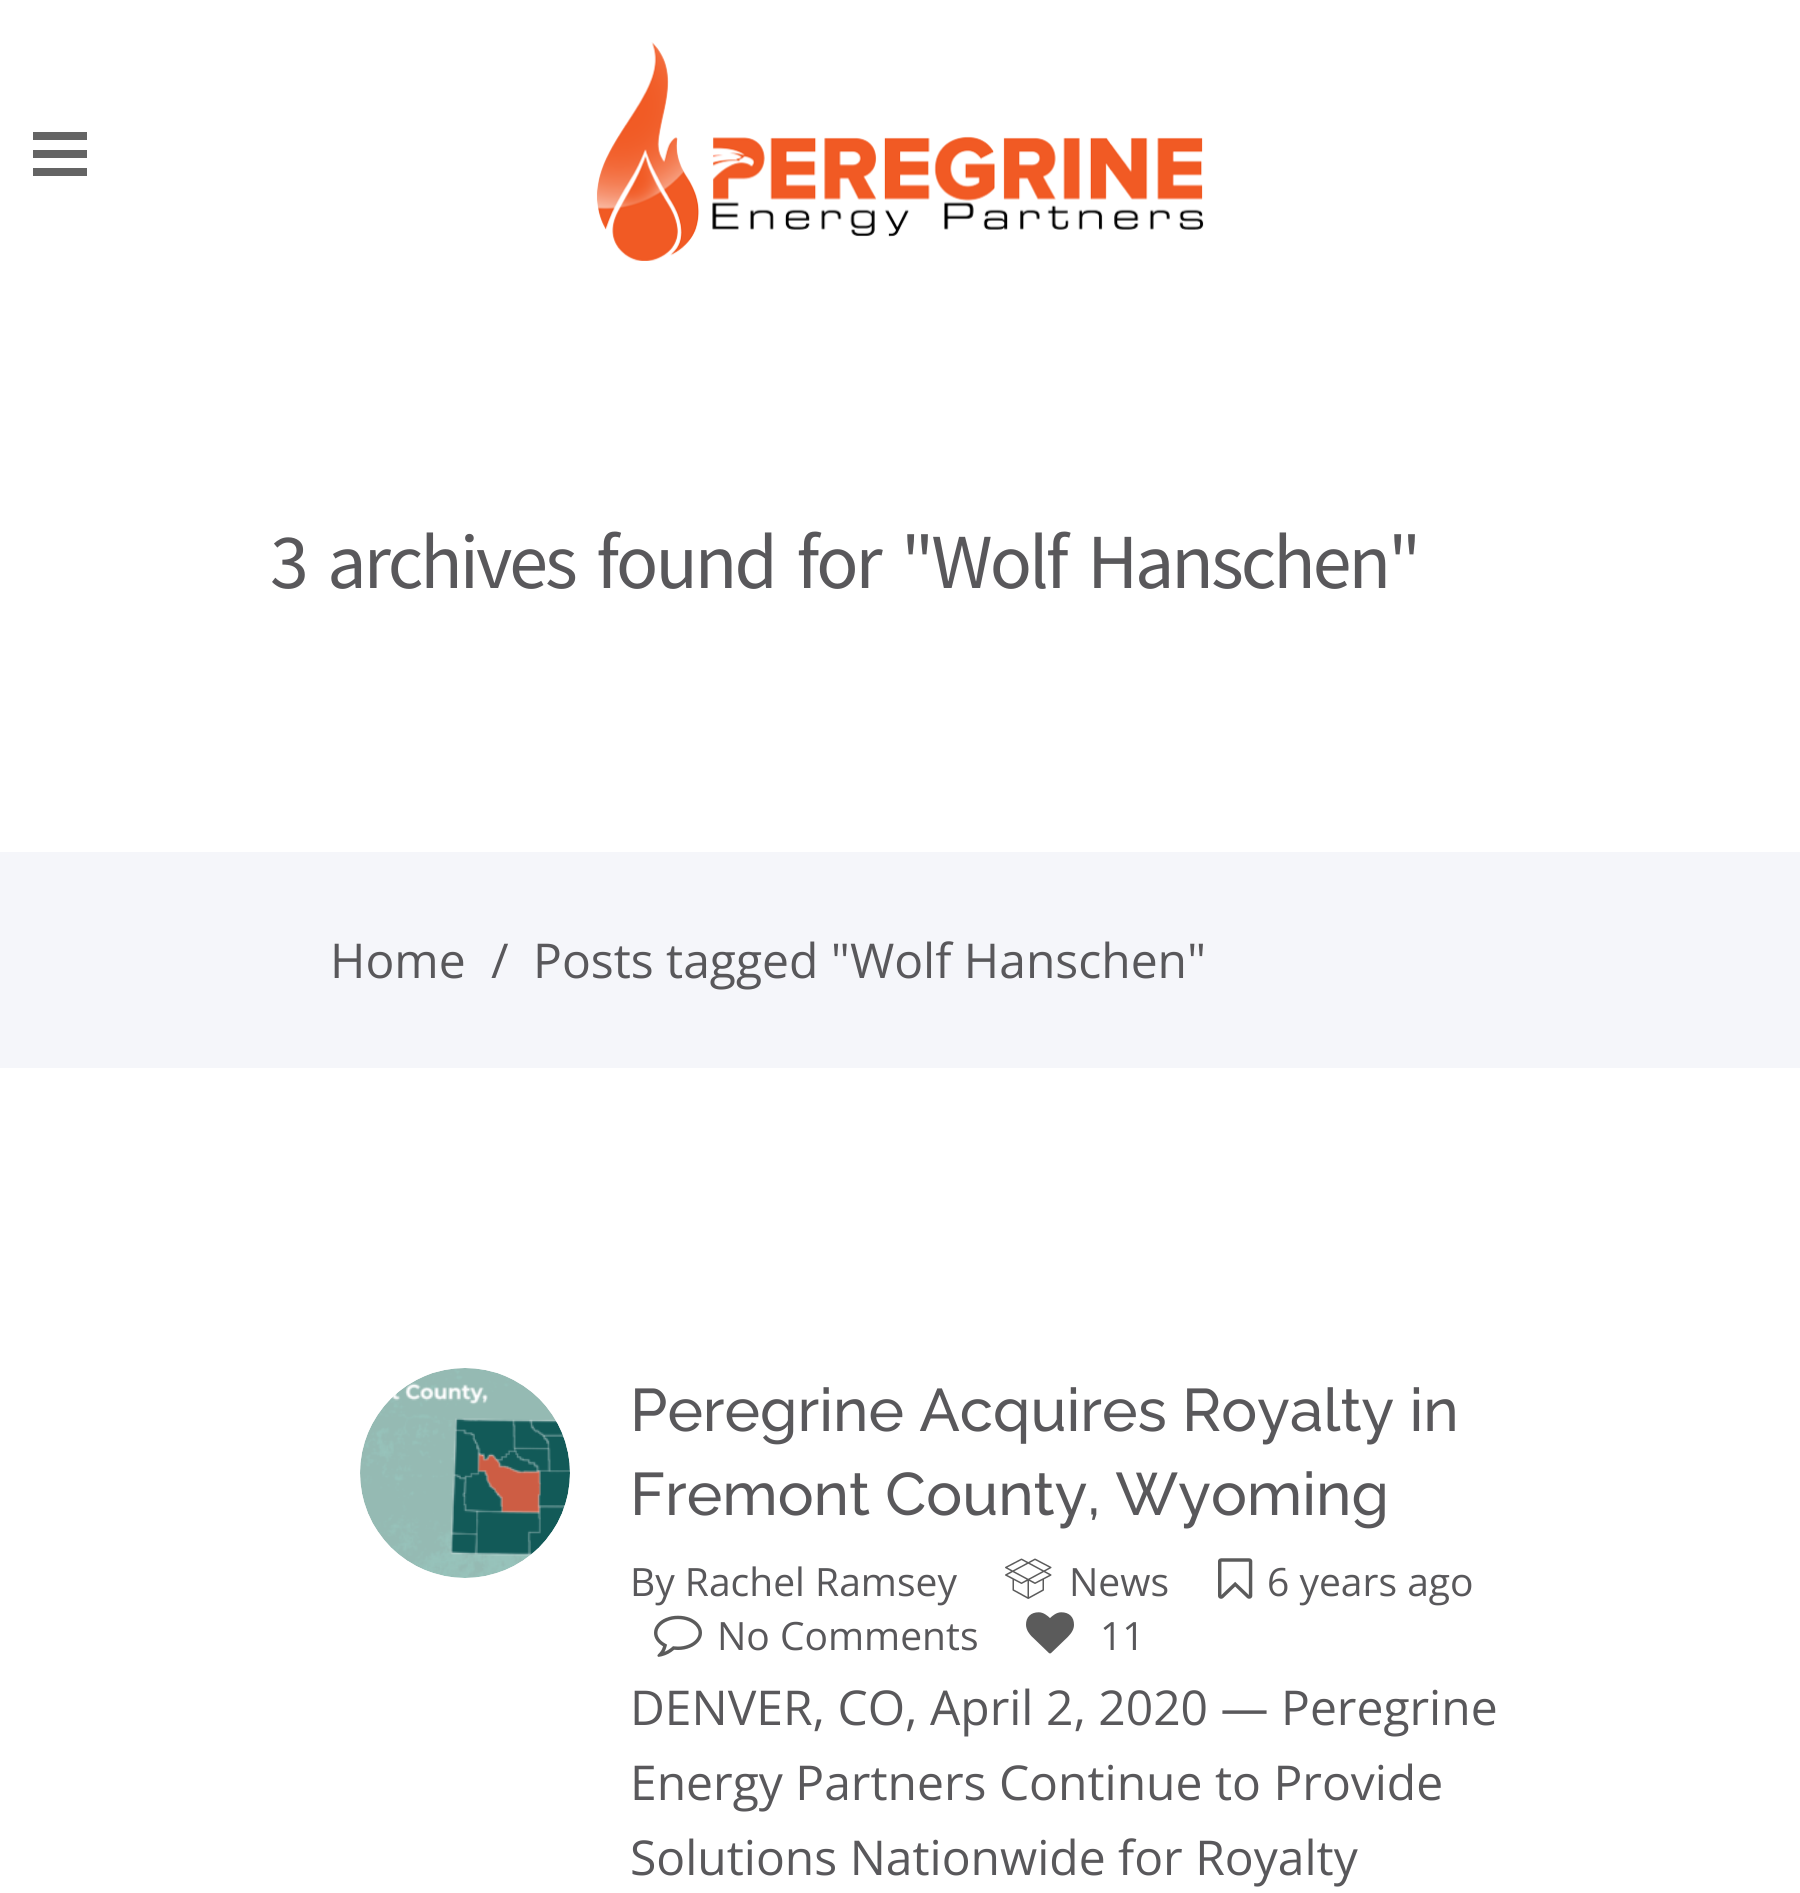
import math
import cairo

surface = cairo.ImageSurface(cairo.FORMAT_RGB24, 1800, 1893)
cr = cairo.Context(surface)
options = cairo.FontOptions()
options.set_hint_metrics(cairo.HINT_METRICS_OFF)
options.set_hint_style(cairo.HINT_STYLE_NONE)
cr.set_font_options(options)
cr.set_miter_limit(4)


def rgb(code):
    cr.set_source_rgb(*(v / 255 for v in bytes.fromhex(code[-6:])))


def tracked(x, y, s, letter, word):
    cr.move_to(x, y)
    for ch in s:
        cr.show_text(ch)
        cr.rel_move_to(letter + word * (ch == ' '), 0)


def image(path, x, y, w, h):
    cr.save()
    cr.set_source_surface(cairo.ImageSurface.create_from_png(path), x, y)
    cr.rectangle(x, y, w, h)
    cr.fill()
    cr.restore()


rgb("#ffffff")
cr.paint()
for x, y, w, h, color in [
    (33, 132, 54, 8, "#646464"),
    (33, 150, 54, 8, "#646464"),
    (33, 168, 54, 8, "#646464"),
]:
    rgb(color)
    cr.rectangle(x, y, w, h)
    cr.fill()
image("img/1.png", 596, 42, 608, 219)
rgb("#f5f6fa")
cr.rectangle(0, 852, 1800, 216)
cr.fill()
rgb("#f7f7f7")
cr.arc(465, 1473, 105, 0, 2 * math.pi)
cr.fill()
image("img/2.png", 360, 1368, 210, 210)
image("img/3.png", 1005, 1558, 47, 41)
image("img/4.png", 1218, 1558, 35, 41)
image("img/5.png", 654, 1615, 48, 42)
image("img/6.png", 1026, 1612, 48, 42)
cr.select_font_face("Source Sans Pro")
cr.set_font_size(78)
rgb("#59585b")
tracked(270, 588, "3 archives found for \"Wolf Hanschen\"", -3, 9)
cr.select_font_face("Open Sans")
cr.set_font_size(48)
for x, y, s in [
    (330, 978, "Home"),
    (491, 978, "/"),
    (533, 978, "Posts tagged \"Wolf Hanschen\""),
]:
    cr.move_to(x, y)
    cr.show_text(s)
cr.select_font_face("Raleway Medium")
cr.set_font_size(60)
cr.move_to(630, 1431)
cr.show_text("Peregrine Acquires Royalty in")
cr.move_to(630, 1515)
cr.show_text("Fremont County, Wyoming")
cr.select_font_face("Open Sans")
cr.set_font_size(39)
for x, y, s in [
    (630, 1596, "By Rachel Ramsey"),
    (1069, 1596, "News"),
    (1267, 1596, "6 years ago"),
    (717, 1650, "No Comments"),
    (1100, 1650, "11"),
]:
    cr.move_to(x, y)
    cr.show_text(s)
cr.set_font_size(48)
for x, y, s in [
    (630, 1725, "DENVER, CO, April 2, 2020 — Peregrine"),
    (630, 1800, "Energy Partners Continue to Provide"),
    (630, 1875, "Solutions Nationwide for Royalty"),
]:
    cr.move_to(x, y)
    cr.show_text(s)
surface.write_to_png("page.png")
